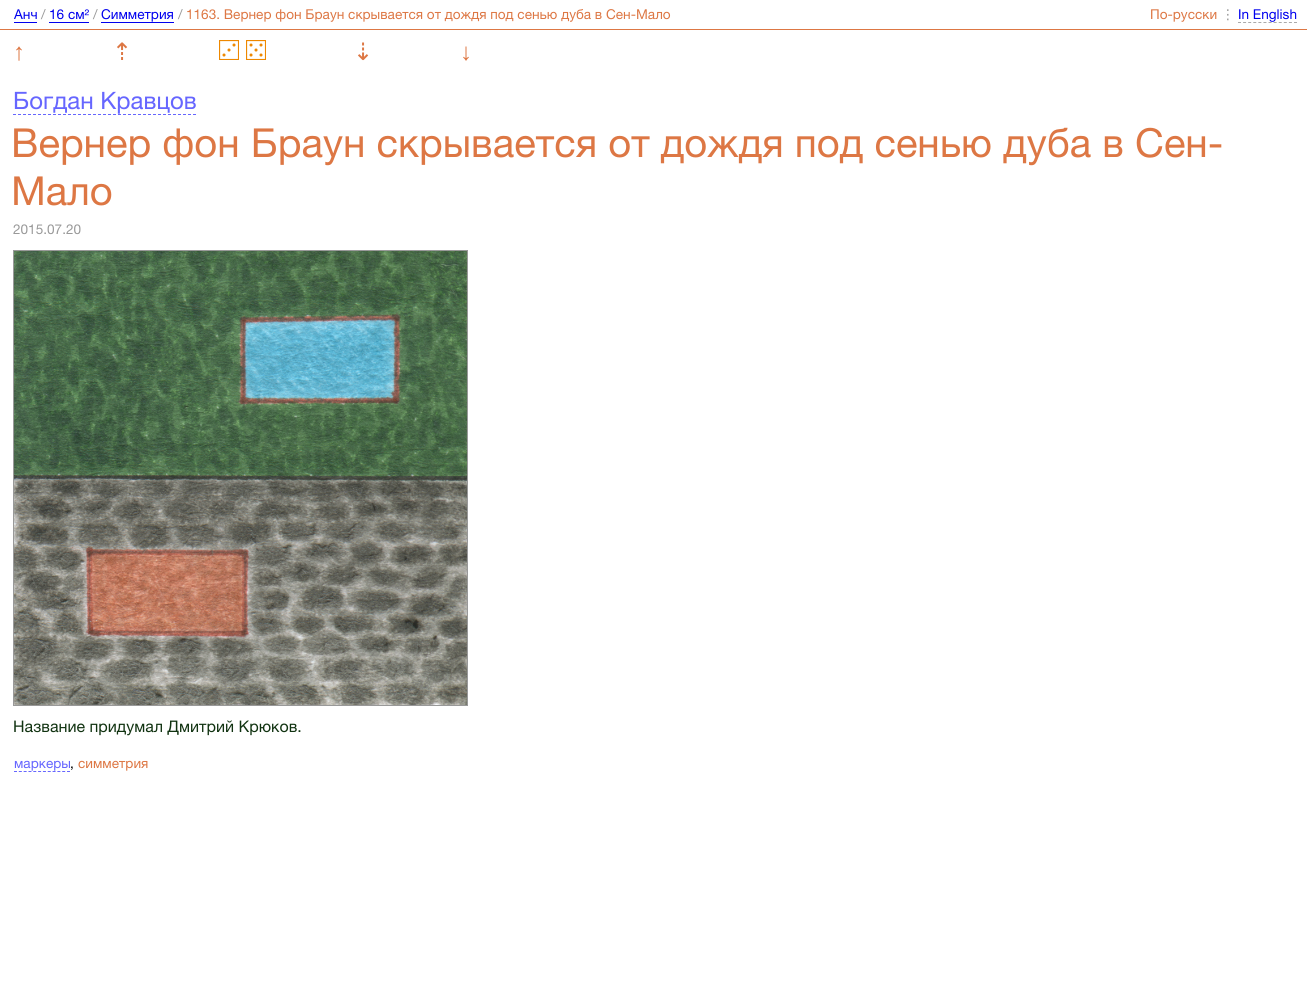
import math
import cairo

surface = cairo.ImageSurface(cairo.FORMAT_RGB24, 1307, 990)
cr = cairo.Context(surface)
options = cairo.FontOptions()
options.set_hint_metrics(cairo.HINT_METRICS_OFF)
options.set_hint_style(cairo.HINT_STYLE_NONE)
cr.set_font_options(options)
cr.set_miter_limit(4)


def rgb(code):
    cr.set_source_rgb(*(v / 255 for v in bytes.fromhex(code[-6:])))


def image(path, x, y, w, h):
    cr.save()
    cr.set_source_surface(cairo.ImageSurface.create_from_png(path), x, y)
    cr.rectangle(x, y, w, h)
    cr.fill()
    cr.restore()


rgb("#ffffff")
cr.paint()
for x, y, w, h, color in [
    (0, 29, 1307, 1, "#dd7744"),
    (14, 22, 23, 1, "#0000ee"),
    (49, 22, 40, 1, "#0000ee"),
    (101, 22, 73, 1, "#0000ee"),
]:
    rgb(color)
    cr.rectangle(x, y, w, h)
    cr.fill()
cr.new_path()
cr.move_to(1238, 22.5)
cr.line_to(1297, 22.5)
rgb("#aaaaaa")
cr.set_line_width(1)
cr.set_dash([3, 2.09])
cr.stroke()
image("img/1.png", 219, 40, 20, 20)
image("img/2.png", 246, 40, 20, 20)
cr.new_path()
cr.move_to(13, 114.5)
cr.line_to(196, 114.5)
rgb("#6666ff")
cr.set_dash([3, 2])
cr.stroke()
cr.rectangle(13.5, 250.5, 454, 455)
rgb("#999999")
cr.set_dash([])
cr.stroke()
image("img/3.png", 14, 251, 453, 454)
cr.new_path()
cr.move_to(14, 771.5)
cr.line_to(70, 771.5)
rgb("#6666ff")
cr.set_dash([3, 1.82])
cr.stroke()
cr.select_font_face("Helvetica Neue")
cr.set_font_size(13.6)
rgb("#0000ee")
cr.move_to(14, 19)
cr.show_text("Анч")
rgb("#999999")
cr.move_to(41, 19)
cr.show_text("/")
rgb("#0000ee")
cr.move_to(49, 19)
cr.show_text("16 см²")
rgb("#999999")
cr.move_to(93, 19)
cr.show_text("/")
rgb("#0000ee")
cr.move_to(101, 19)
cr.show_text("Симметрия")
rgb("#999999")
cr.move_to(178, 19)
cr.show_text("/")
rgb("#dd7744")
cr.move_to(186, 19)
cr.show_text("1163. Вернер фон Браун скрывается от дождя под сенью дуба в Сен-Мало")
cr.move_to(1150, 19)
cr.show_text("По-русски")
cr.select_font_face("DejaVu Sans")
rgb("#999999")
cr.move_to(1221, 19)
cr.show_text("⋮")
cr.select_font_face("Helvetica Neue")
rgb("#0000ee")
cr.move_to(1238, 19)
cr.show_text("In English")
cr.select_font_face("Liberation Sans")
cr.set_font_size(24)
rgb("#dd7744")
cr.move_to(13, 60)
cr.show_text("↑")
cr.select_font_face("DejaVu Sans")
cr.move_to(112, 60)
cr.show_text("⇡")
cr.move_to(353, 60)
cr.show_text("⇣")
cr.select_font_face("Liberation Sans")
cr.move_to(460, 60)
cr.show_text("↓")
cr.select_font_face("Helvetica Neue")
rgb("#6666ff")
cr.move_to(13, 109)
cr.show_text("Богдан Кравцов")
cr.set_font_size(40)
rgb("#dd7744")
cr.move_to(11, 157)
cr.show_text("Вернер фон Браун скрывается от дождя под сенью дуба в Сен-")
cr.move_to(11, 205)
cr.show_text("Мало")
cr.set_font_size(13.6)
rgb("#999999")
cr.move_to(13, 234)
cr.show_text("2015.07.20")
cr.set_font_size(16)
rgb("#113311")
cr.move_to(13, 732)
cr.show_text("Название придумал Дмитрий Крюков.")
cr.set_font_size(13.6)
rgb("#6666ff")
cr.move_to(14, 768)
cr.show_text("маркеры")
rgb("#000000")
cr.move_to(70, 768)
cr.show_text(",")
rgb("#dd7744")
cr.move_to(78, 768)
cr.show_text("симметрия")
surface.write_to_png("page.png")
